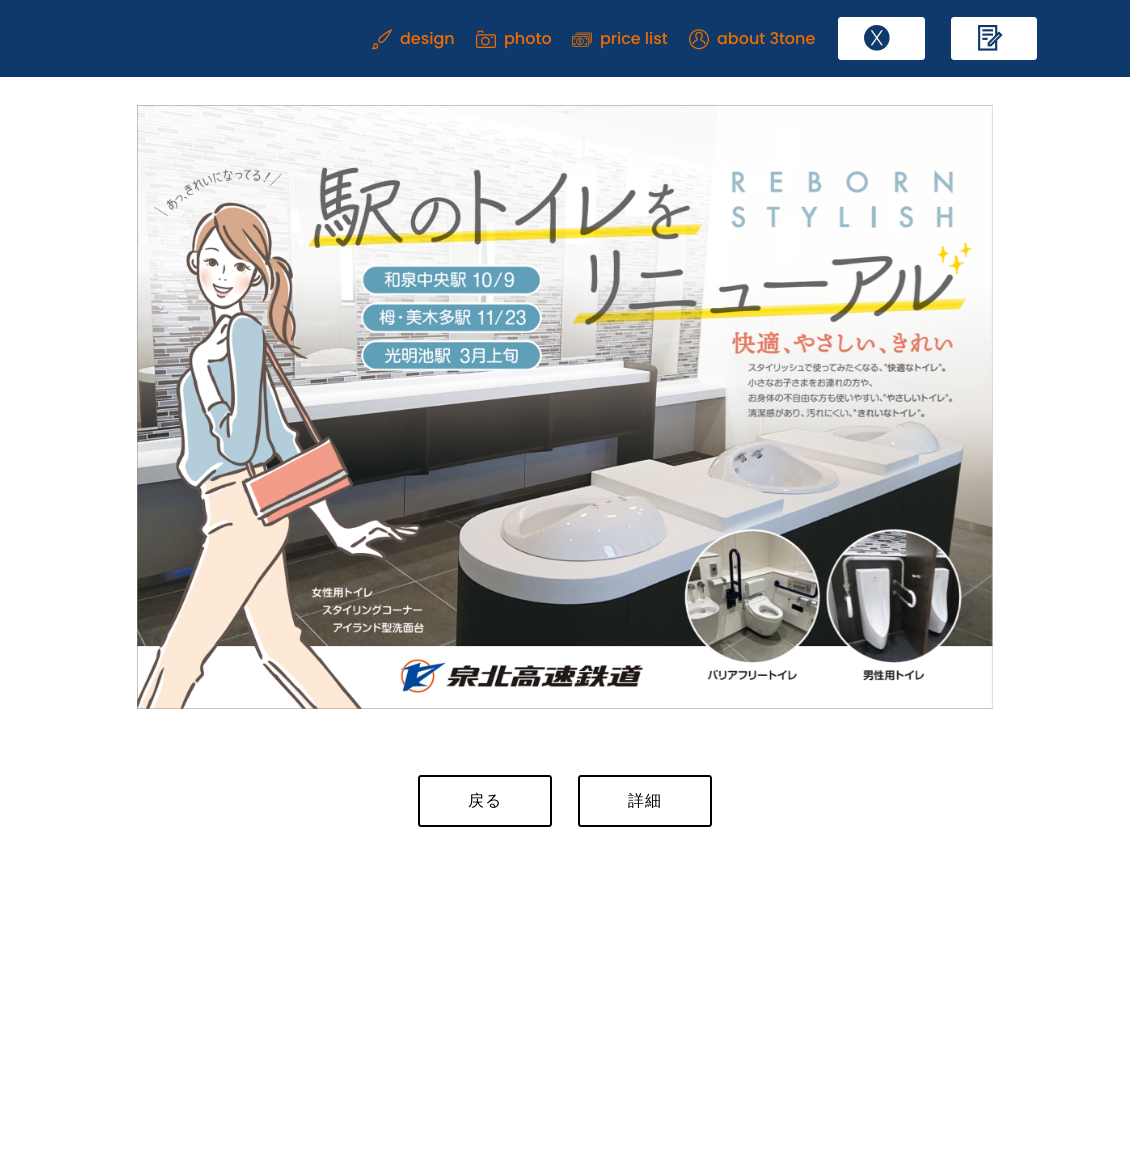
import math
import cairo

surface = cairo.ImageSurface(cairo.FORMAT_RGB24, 1130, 1174)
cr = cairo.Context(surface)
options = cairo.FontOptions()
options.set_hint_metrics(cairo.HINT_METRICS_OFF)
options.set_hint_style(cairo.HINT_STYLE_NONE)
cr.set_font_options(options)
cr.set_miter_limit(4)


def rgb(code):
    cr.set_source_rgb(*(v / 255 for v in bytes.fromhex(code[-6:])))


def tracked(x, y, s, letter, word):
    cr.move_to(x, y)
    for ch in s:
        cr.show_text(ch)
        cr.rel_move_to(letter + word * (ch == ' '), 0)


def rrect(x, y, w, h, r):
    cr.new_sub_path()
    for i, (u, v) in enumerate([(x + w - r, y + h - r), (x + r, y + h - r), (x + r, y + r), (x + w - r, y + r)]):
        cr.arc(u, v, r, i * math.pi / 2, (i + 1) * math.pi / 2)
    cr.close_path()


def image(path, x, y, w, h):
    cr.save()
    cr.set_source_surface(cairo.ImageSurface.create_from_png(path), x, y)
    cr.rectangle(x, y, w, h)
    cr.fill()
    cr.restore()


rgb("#ffffff")
cr.paint()
rgb("#10396b")
cr.rectangle(0, 0, 1130, 77)
cr.fill()
image("img/1.png", 372, 29, 20, 21)
image("img/2.png", 476, 30, 20, 18)
image("img/3.png", 572, 32, 20, 15)
image("img/4.png", 689, 29, 20, 21)
rgb("#ffffff")
rrect(839, 18, 85, 41, 2)
cr.fill_preserve()
cr.stroke()
image("img/5.png", 864, 25, 26, 26)
rrect(952, 18, 84, 41, 2)
cr.fill_preserve()
cr.stroke()
image("img/6.png", 978, 25, 25, 26)
image("img/7.png", 137, 105, 856, 604)
rrect(419, 776, 132, 50, 2)
rgb("#000000")
cr.stroke()
rrect(579, 776, 132, 50, 2)
cr.stroke()
cr.select_font_face("Poppins Medium")
cr.set_font_size(16)
rgb("#ed6c00")
for x, y, s in [
    (400, 44, "design"),
    (504, 44, "photo"),
    (600, 44, "price list"),
    (717, 44, "about 3tone"),
]:
    cr.move_to(x, y)
    cr.show_text(s)
cr.select_font_face("WenQuanYi Zen Hei Medium")
rgb("#000000")
tracked(468, 806, "戻る", 1, 0)
tracked(628, 806, "詳細", 1, 0)
surface.write_to_png("page.png")
